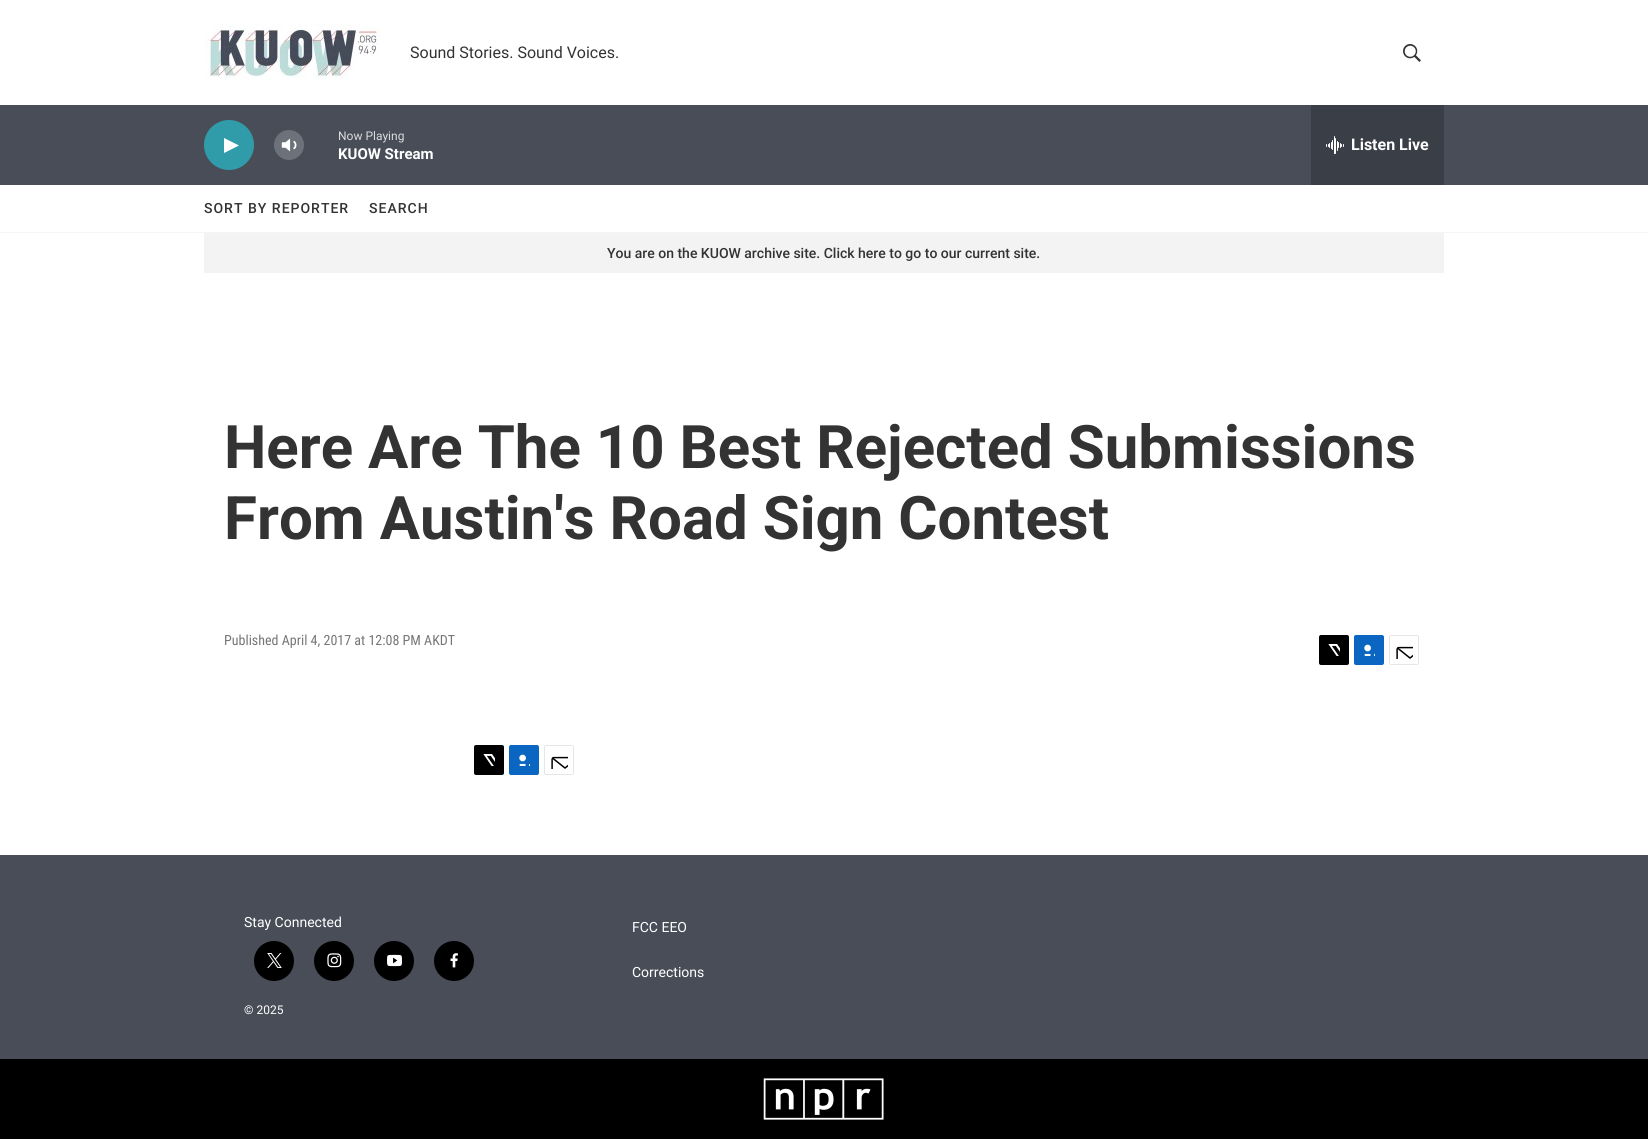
import math
import cairo

surface = cairo.ImageSurface(cairo.FORMAT_RGB24, 1648, 1142)
cr = cairo.Context(surface)
options = cairo.FontOptions()
options.set_hint_metrics(cairo.HINT_METRICS_OFF)
options.set_hint_style(cairo.HINT_STYLE_NONE)
cr.set_font_options(options)
cr.set_miter_limit(4)


def rgb(code):
    cr.set_source_rgb(*(v / 255 for v in bytes.fromhex(code[-6:])))


def tracked(x, y, s, letter, word):
    cr.move_to(x, y)
    for ch in s:
        cr.show_text(ch)
        cr.rel_move_to(letter + word * (ch == ' '), 0)


def rrect(x, y, w, h, r):
    cr.new_sub_path()
    for i, (u, v) in enumerate([(x + w - r, y + h - r), (x + r, y + h - r), (x + r, y + r), (x + w - r, y + r)]):
        cr.arc(u, v, r, i * math.pi / 2, (i + 1) * math.pi / 2)
    cr.close_path()


def image(path, x, y, w, h):
    cr.save()
    cr.set_source_surface(cairo.ImageSurface.create_from_png(path), x, y)
    cr.rectangle(x, y, w, h)
    cr.fill()
    cr.restore()


rgb("#ffffff")
cr.paint()
rgb("#f5f5f5")
cr.rectangle(0, 232, 1648, 1)
cr.fill()
image("img/1.png", 204, 23, 176, 57)
image("img/2.png", 1403, 44, 18, 18)
rgb("#494d58")
cr.rectangle(0, 105, 1648, 80)
cr.fill()
rgb("#309ca9")
cr.arc(229, 145, 25, 0, 2 * math.pi)
cr.fill()
rgb("#ffffff")
cr.new_path()
cr.move_to(224, 138)
cr.line_to(239, 145.5)
cr.line_to(224, 153)
cr.close_path()
cr.fill()
image("img/3.png", 281, 138, 16, 14)
cr.set_source_rgba(1, 1, 1, 0.2)
cr.arc(289, 145, 15, 0, 2 * math.pi)
cr.fill()
rgb("#3a3e46")
cr.rectangle(1311, 105, 133, 80)
cr.fill()
image("img/4.png", 1326, 136, 18, 18)
rgb("#f3f3f3")
cr.rectangle(204, 233, 1240, 40)
cr.fill()
rgb("#000000")
rrect(1319, 635, 30, 30, 2)
cr.fill()
image("img/5.png", 1328, 644, 12, 12)
rgb("#0a66c1")
rrect(1354, 635, 30, 30, 2)
cr.fill()
image("img/6.png", 1364, 644, 11, 12)
rrect(1389.5, 635.5, 29, 29, 1.5)
rgb("#e6e6e6")
cr.set_line_width(1)
cr.stroke()
image("img/7.png", 1396, 646, 17, 13)
rgb("#000000")
rrect(474, 745, 30, 30, 2)
cr.fill()
image("img/5.png", 483, 754, 12, 12)
rgb("#0a66c1")
rrect(509, 745, 30, 30, 2)
cr.fill()
image("img/6.png", 519, 754, 11, 12)
rrect(544.5, 745.5, 29, 29, 1.5)
rgb("#e6e6e6")
cr.stroke()
image("img/7.png", 551, 756, 17, 13)
rgb("#494d58")
cr.rectangle(0, 855, 1648, 204)
cr.fill()
rgb("#000000")
cr.arc(274, 961, 20, 0, 2 * math.pi)
cr.fill()
image("img/8.png", 267, 953, 15, 15)
cr.arc(334, 961, 20, 0, 2 * math.pi)
cr.fill()
image("img/9.png", 327, 953, 15, 15)
cr.arc(394, 961, 20, 0, 2 * math.pi)
cr.fill()
image("img/10.png", 387, 954, 15, 13)
cr.arc(454, 961, 20, 0, 2 * math.pi)
cr.fill()
image("img/11.png", 450, 953, 8, 15)
cr.rectangle(0, 1059, 1648, 80)
cr.fill()
image("img/12.png", 763, 1078, 121, 42)
cr.select_font_face("Roboto")
cr.set_font_size(16)
rgb("#333333")
cr.move_to(410, 58)
cr.show_text("Sound Stories. Sound Voices.")
cr.set_font_size(12)
rgb("#dbdbde")
cr.move_to(338, 140)
cr.show_text("Now Playing")
cr.select_font_face("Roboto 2", cairo.FONT_SLANT_NORMAL, cairo.FONT_WEIGHT_BOLD)
cr.set_font_size(15)
rgb("#ffffff")
cr.move_to(338, 159)
cr.show_text("KUOW Stream")
cr.set_font_size(16)
cr.move_to(1351, 150)
cr.show_text("Listen Live")
cr.select_font_face("Roboto Medium")
cr.set_font_size(14)
rgb("#333333")
tracked(204, 213, "SORT BY REPORTER", 1, 0)
tracked(369, 213, "SEARCH", 1, 0)
cr.move_to(607, 258)
cr.show_text("You are on the KUOW archive site. Click here to go to our current site.")
cr.select_font_face("Roboto", cairo.FONT_SLANT_NORMAL, cairo.FONT_WEIGHT_BOLD)
cr.set_font_size(60)
cr.move_to(224, 468)
cr.show_text("Here Are The 10 Best Rejected Submissions")
cr.move_to(224, 539)
cr.show_text("From Austin's Road Sign Contest")
cr.select_font_face("Roboto Condensed")
cr.set_font_size(14)
rgb("#767676")
cr.move_to(224, 645)
cr.show_text("Published April 4, 2017 at 12:08 PM AKDT")
cr.select_font_face("Roboto")
rgb("#ffffff")
cr.move_to(244, 927)
cr.show_text("Stay Connected")
cr.set_font_size(12)
cr.move_to(244, 1014)
cr.show_text("© 2025")
cr.set_font_size(14)
cr.move_to(632, 932)
cr.show_text("FCC EEO")
cr.move_to(632, 977)
cr.show_text("Corrections")
surface.write_to_png("page.png")
